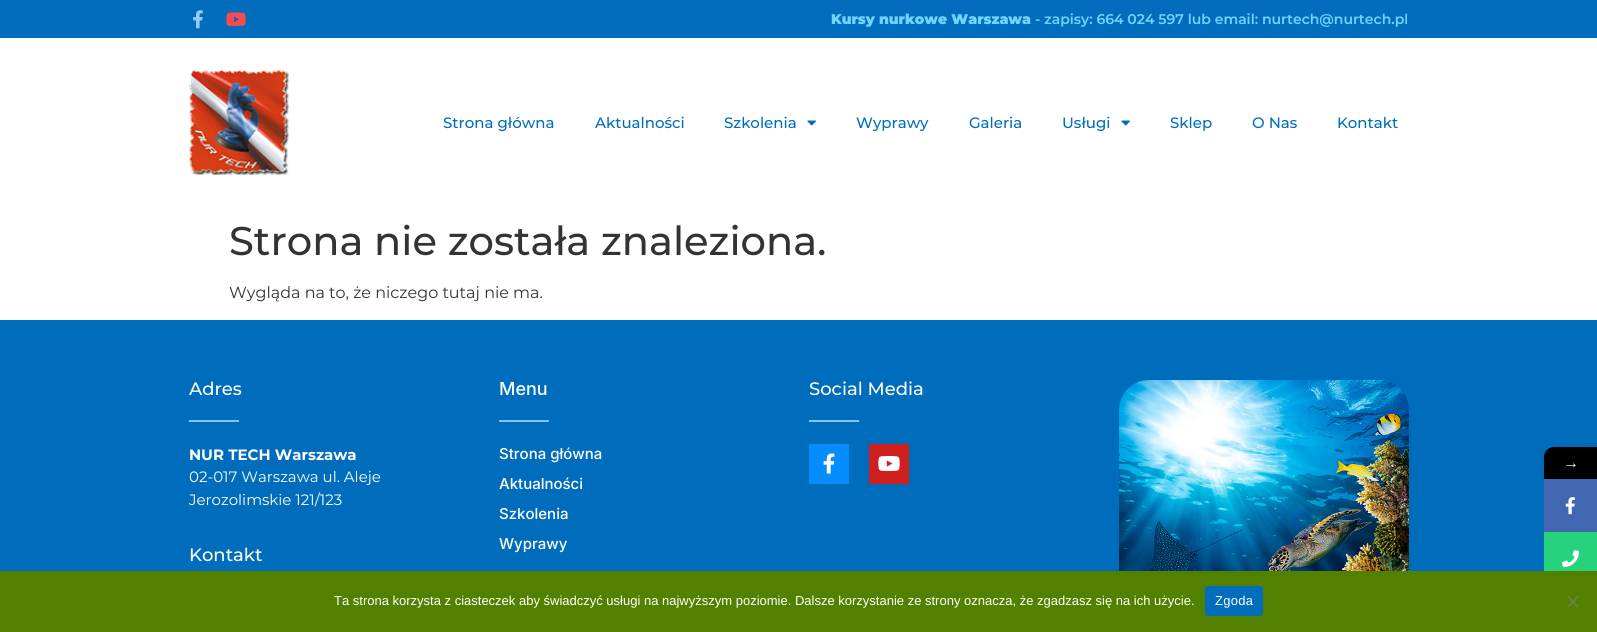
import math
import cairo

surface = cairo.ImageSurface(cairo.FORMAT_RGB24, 1597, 632)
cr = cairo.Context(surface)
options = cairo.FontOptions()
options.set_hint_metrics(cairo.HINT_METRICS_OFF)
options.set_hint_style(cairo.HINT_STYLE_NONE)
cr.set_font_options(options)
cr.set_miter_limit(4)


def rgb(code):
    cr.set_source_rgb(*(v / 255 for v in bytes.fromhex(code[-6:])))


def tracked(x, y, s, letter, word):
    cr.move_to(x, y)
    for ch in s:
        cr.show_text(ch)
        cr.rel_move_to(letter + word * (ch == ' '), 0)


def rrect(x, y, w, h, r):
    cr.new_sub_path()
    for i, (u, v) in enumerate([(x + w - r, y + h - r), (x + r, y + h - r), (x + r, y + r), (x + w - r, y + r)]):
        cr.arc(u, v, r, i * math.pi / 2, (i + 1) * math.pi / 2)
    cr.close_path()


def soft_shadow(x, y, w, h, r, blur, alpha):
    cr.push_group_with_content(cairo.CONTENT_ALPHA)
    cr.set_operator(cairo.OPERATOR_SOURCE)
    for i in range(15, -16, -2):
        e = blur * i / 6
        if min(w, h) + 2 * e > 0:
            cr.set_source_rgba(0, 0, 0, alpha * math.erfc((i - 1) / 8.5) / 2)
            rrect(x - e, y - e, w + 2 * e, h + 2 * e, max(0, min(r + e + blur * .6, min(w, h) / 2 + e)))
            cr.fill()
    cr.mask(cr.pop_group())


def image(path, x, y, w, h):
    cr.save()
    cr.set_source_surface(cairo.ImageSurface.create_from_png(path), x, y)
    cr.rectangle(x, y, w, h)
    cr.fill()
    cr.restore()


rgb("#ffffff")
cr.paint()
rgb("#036dbd")
cr.rectangle(0, 0, 1597, 38)
cr.fill()
image("img/1.png", 193, 10, 10, 19)
image("img/2.png", 226, 12, 20, 14)
image("img/3.png", 189, 70, 100, 105)
image("img/4.png", 807, 120, 9, 6)
image("img/4.png", 1121, 120, 9, 6)
for x, y, w, h, color in [
    (0, 320, 1597, 251, "#006dbc"),
    (189, 420, 50, 2, "#7bc9f6"),
    (499, 420, 50, 2, "#7bc9f6"),
    (809, 420, 50, 2, "#7bc9f6"),
    (809, 444, 40, 40, "#058dff"),
]:
    rgb(color)
    cr.rectangle(x, y, w, h)
    cr.fill()
image("img/5.png", 823, 453, 12, 21)
rgb("#cd201f")
cr.rectangle(869, 444, 40, 40)
cr.fill()
image("img/6.png", 878, 456, 22, 15)
image("img/7.png", 1119, 380, 290, 191)
rgb("#000000")
soft_shadow(1544, 450, 53, 32, 10, 3, 0.16)
rgb("#000000")
cr.new_path()
cr.move_to(1554, 447)
cr.line_to(1597, 447)
cr.line_to(1597, 479)
cr.line_to(1544, 479)
cr.line_to(1544, 457)
cr.curve_to(1544, 451.5, 1548.5, 447, 1554, 447)
cr.close_path()
cr.fill()
rgb("#4267b2")
cr.rectangle(1544, 479, 53, 53)
cr.fill()
image("img/8.png", 1565, 497, 10, 18)
rgb("#26d37c")
cr.rectangle(1544, 532, 53, 39)
cr.fill()
image("img/9.png", 1562, 550, 17, 18)
rgb("#528100")
cr.rectangle(0, 571, 1597, 61)
cr.fill()
rgb("#026dbd")
rrect(1205, 586, 58, 30, 3)
cr.fill()
rgb("#698140")
cr.new_path()
cr.move_to(1577.5, 595.5)
cr.line_to(1579, 597)
cr.line_to(1568.5, 608)
cr.line_to(1567, 606.5)
cr.close_path()
cr.fill()
cr.new_path()
cr.move_to(1567, 597)
cr.line_to(1568.5, 595.5)
cr.line_to(1579, 606.5)
cr.line_to(1577.5, 608)
cr.close_path()
cr.fill()
cr.select_font_face("Montserrat Black")
cr.set_font_size(14)
rgb("#72d3ff")
cr.move_to(831, 24)
cr.show_text("Kursy nurkowe Warszawa")
cr.select_font_face("Montserrat SemiBold")
cr.move_to(1035, 24)
cr.show_text("- zapisy: 664 024 597 lub email: nurtech@nurtech.pl")
cr.select_font_face("Montserrat Medium")
cr.set_font_size(15)
rgb("#026dbd")
for x, y, s in [
    (443, 128, "Strona główna"),
    (595, 128, "Aktualności"),
    (724, 128, "Szkolenia"),
    (856, 128, "Wyprawy"),
    (969, 128, "Galeria"),
    (1062, 128, "Usługi"),
    (1170, 128, "Sklep"),
    (1252, 128, "O Nas"),
    (1337, 128, "Kontakt"),
]:
    cr.move_to(x, y)
    cr.show_text(s)
cr.set_font_size(40)
rgb("#333333")
cr.move_to(229, 255)
cr.show_text("Strona nie została znaleziona.")
cr.select_font_face("Montserrat")
cr.set_font_size(16)
cr.move_to(229, 298)
cr.show_text("Wygląda na to, że niczego tutaj nie ma.")
cr.select_font_face("Montserrat Medium")
cr.set_font_size(18)
rgb("#ffffff")
cr.move_to(189, 395)
cr.show_text("Adres")
cr.select_font_face("Montserrat", cairo.FONT_SLANT_NORMAL, cairo.FONT_WEIGHT_BOLD)
cr.set_font_size(15)
cr.move_to(189, 460)
cr.show_text("NUR TECH Warszawa")
cr.select_font_face("Montserrat")
cr.move_to(189, 482)
cr.show_text("02-017 Warszawa ul. Aleje")
cr.move_to(189, 505)
cr.show_text("Jerozolimskie 121/123")
cr.select_font_face("Montserrat Medium")
cr.set_font_size(18)
cr.move_to(189, 561)
cr.show_text("Kontakt")
cr.select_font_face("Inter Medium")
cr.move_to(499, 395)
cr.show_text("Menu")
cr.set_font_size(15)
for x, y, s in [
    (499, 459, "Strona główna"),
    (499, 489, "Aktualności"),
    (499, 519, "Szkolenia"),
    (499, 549, "Wyprawy"),
]:
    cr.move_to(x, y)
    cr.show_text(s)
cr.select_font_face("Montserrat Medium")
cr.set_font_size(18)
cr.move_to(809, 395)
cr.show_text("Social Media")
cr.select_font_face("Liberation Serif")
cr.set_font_size(16)
cr.move_to(1563, 468)
cr.show_text("→")
cr.select_font_face("Liberation Sans")
cr.set_font_size(13)
cr.move_to(334, 605)
cr.show_text("Ta strona korzysta z ciasteczek aby świadczyć usługi na najwyższym poziomie. Dalsze korzystanie ze strony oznacza, że zgadzasz się na ich użycie.")
tracked(1215, 605, "Zgoda", 0.25, 0)
surface.write_to_png("page.png")
